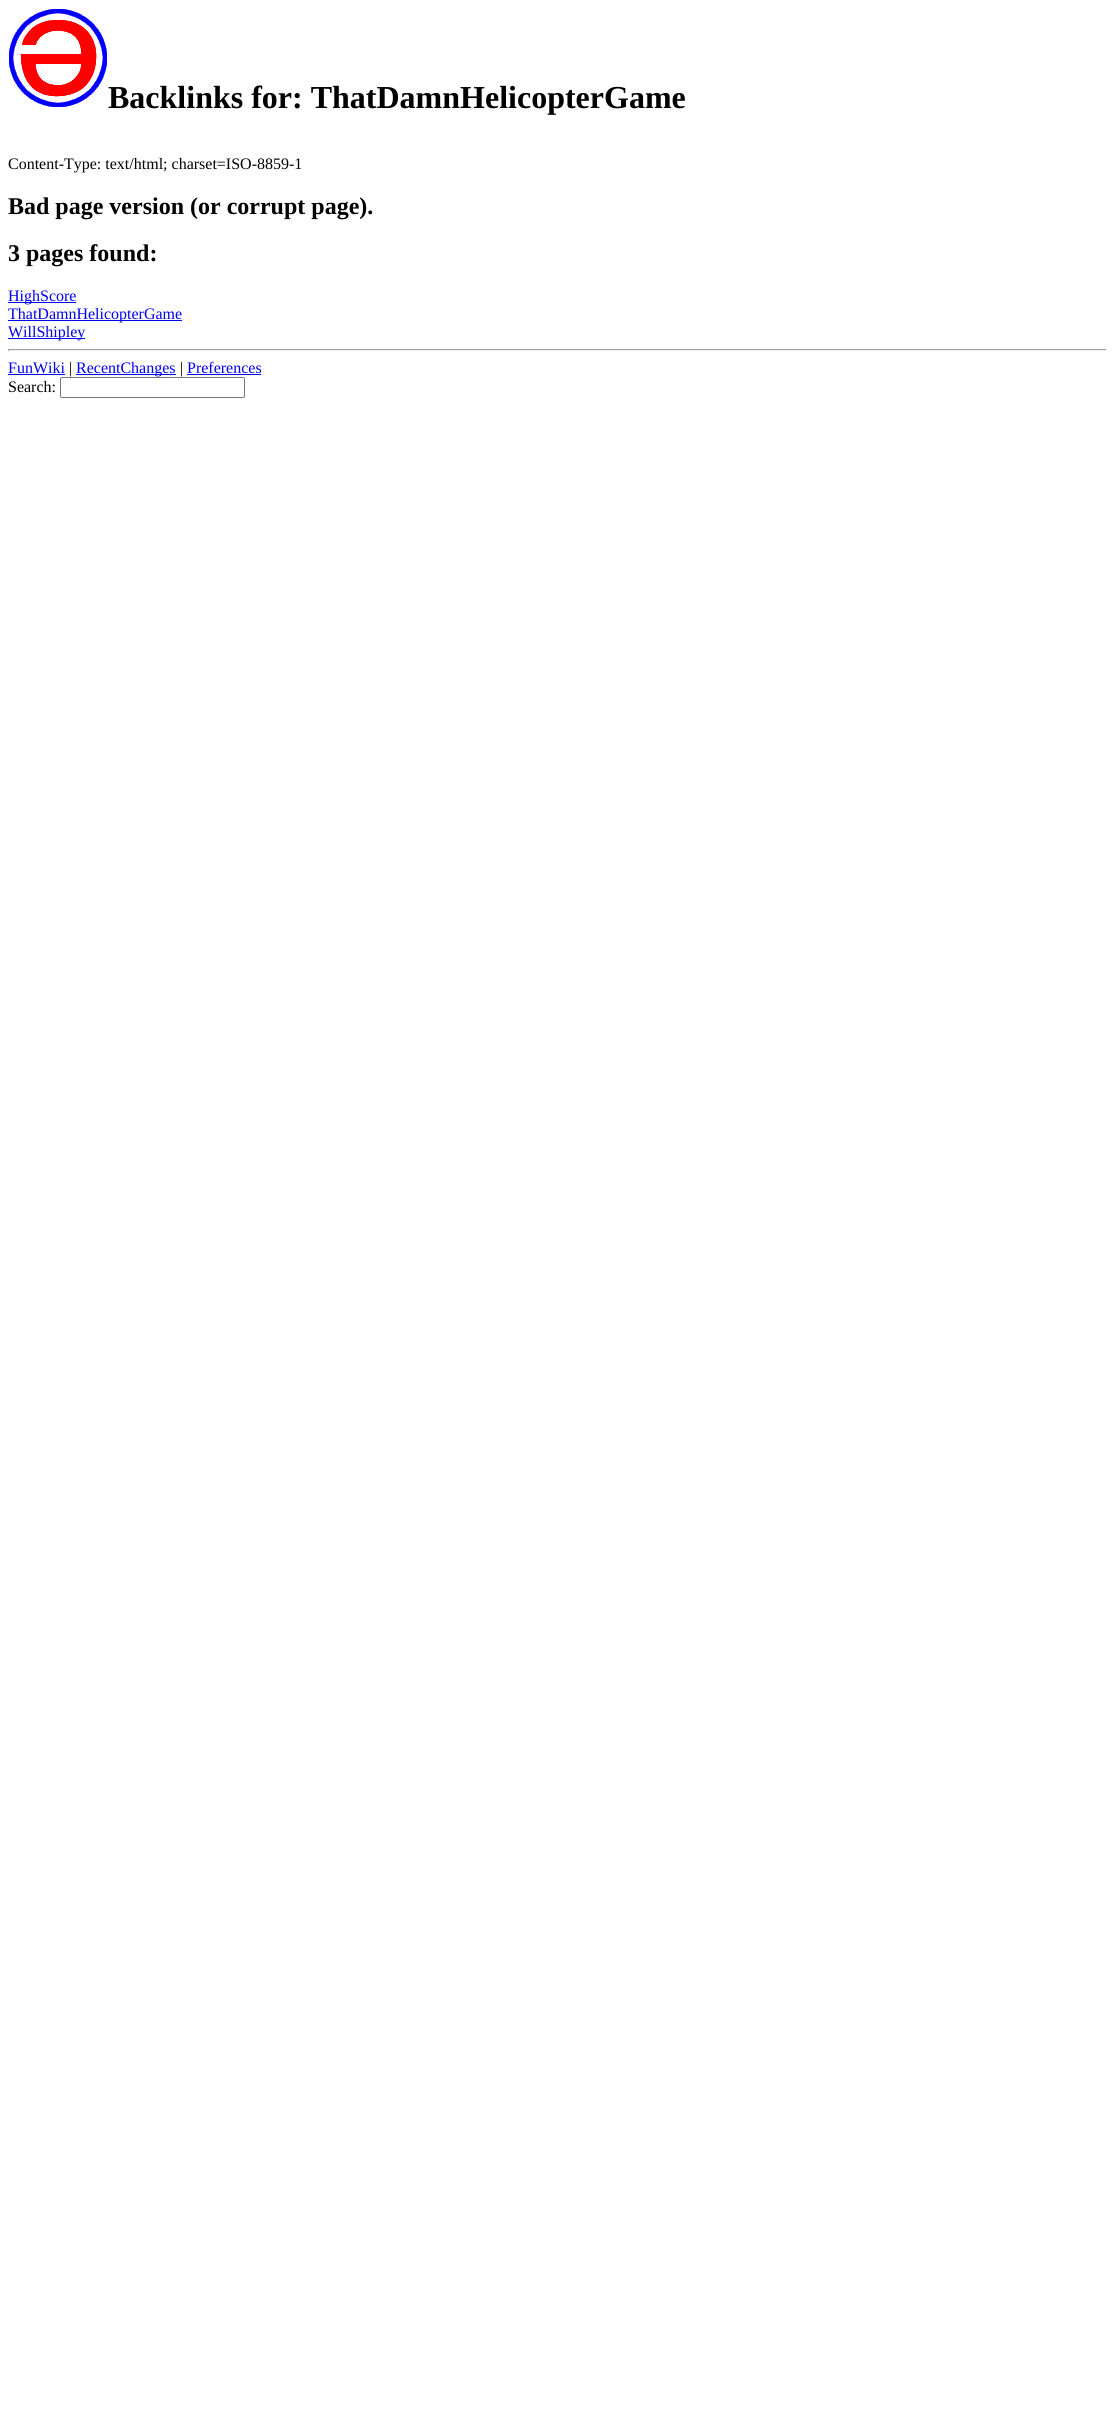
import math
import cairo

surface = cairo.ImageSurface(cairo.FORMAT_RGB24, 1115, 2431)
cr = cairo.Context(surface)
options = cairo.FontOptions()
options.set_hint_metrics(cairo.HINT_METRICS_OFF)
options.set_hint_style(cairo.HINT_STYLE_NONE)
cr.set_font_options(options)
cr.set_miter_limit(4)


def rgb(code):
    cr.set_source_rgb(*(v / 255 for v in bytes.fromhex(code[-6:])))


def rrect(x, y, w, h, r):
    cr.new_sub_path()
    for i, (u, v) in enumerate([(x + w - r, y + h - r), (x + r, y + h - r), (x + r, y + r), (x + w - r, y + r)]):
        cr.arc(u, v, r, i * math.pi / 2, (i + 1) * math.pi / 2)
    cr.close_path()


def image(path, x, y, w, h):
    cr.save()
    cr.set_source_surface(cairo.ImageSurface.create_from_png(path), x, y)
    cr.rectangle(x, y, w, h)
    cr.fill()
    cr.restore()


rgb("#ffffff")
cr.paint()
image("img/1.png", 9, 9, 98, 98)
for x, y, w, h, color in [
    (8, 302, 68, 1, "#0000ee"),
    (8, 320, 174, 1, "#0000ee"),
    (8, 338, 77, 1, "#0000ee"),
    (8, 349, 1099, 1, "#9f9f9f"),
    (1106, 349, 1, 2, "#eeeeee"),
    (8, 350, 1099, 1, "#eeeeee"),
    (8, 349, 1, 2, "#9f9f9f"),
    (8, 374, 57, 1, "#0000ee"),
    (76, 374, 100, 1, "#0000ee"),
    (187, 374, 74, 1, "#0000ee"),
]:
    rgb(color)
    cr.rectangle(x, y, w, h)
    cr.fill()
rrect(60.5, 377.5, 184, 20, 1.5)
rgb("#767676")
cr.set_line_width(1)
cr.stroke()
cr.select_font_face("Liberation Serif", cairo.FONT_SLANT_NORMAL, cairo.FONT_WEIGHT_BOLD)
cr.set_font_size(32)
rgb("#000000")
cr.move_to(108, 108)
cr.show_text("Backlinks for: ThatDamnHelicopterGame")
cr.select_font_face("Liberation Serif")
cr.set_font_size(16)
cr.move_to(8, 169)
cr.show_text("Content-Type: text/html; charset=ISO-8859-1")
cr.select_font_face("Liberation Serif", cairo.FONT_SLANT_NORMAL, cairo.FONT_WEIGHT_BOLD)
cr.set_font_size(24)
cr.move_to(8, 214)
cr.show_text("Bad page version (or corrupt page).")
cr.move_to(8, 261)
cr.show_text("3 pages found:")
cr.select_font_face("Liberation Serif")
cr.set_font_size(16)
rgb("#0000ee")
for x, y, s in [
    (8, 301, "HighScore"),
    (8, 319, "ThatDamnHelicopterGame"),
    (8, 337, "WillShipley"),
    (8, 373, "FunWiki"),
]:
    cr.move_to(x, y)
    cr.show_text(s)
rgb("#000000")
cr.move_to(69, 373)
cr.show_text("|")
rgb("#0000ee")
cr.move_to(76, 373)
cr.show_text("RecentChanges")
rgb("#000000")
cr.move_to(180, 373)
cr.show_text("|")
rgb("#0000ee")
cr.move_to(187, 373)
cr.show_text("Preferences")
rgb("#000000")
cr.move_to(8, 392)
cr.show_text("Search:")
surface.write_to_png("page.png")
